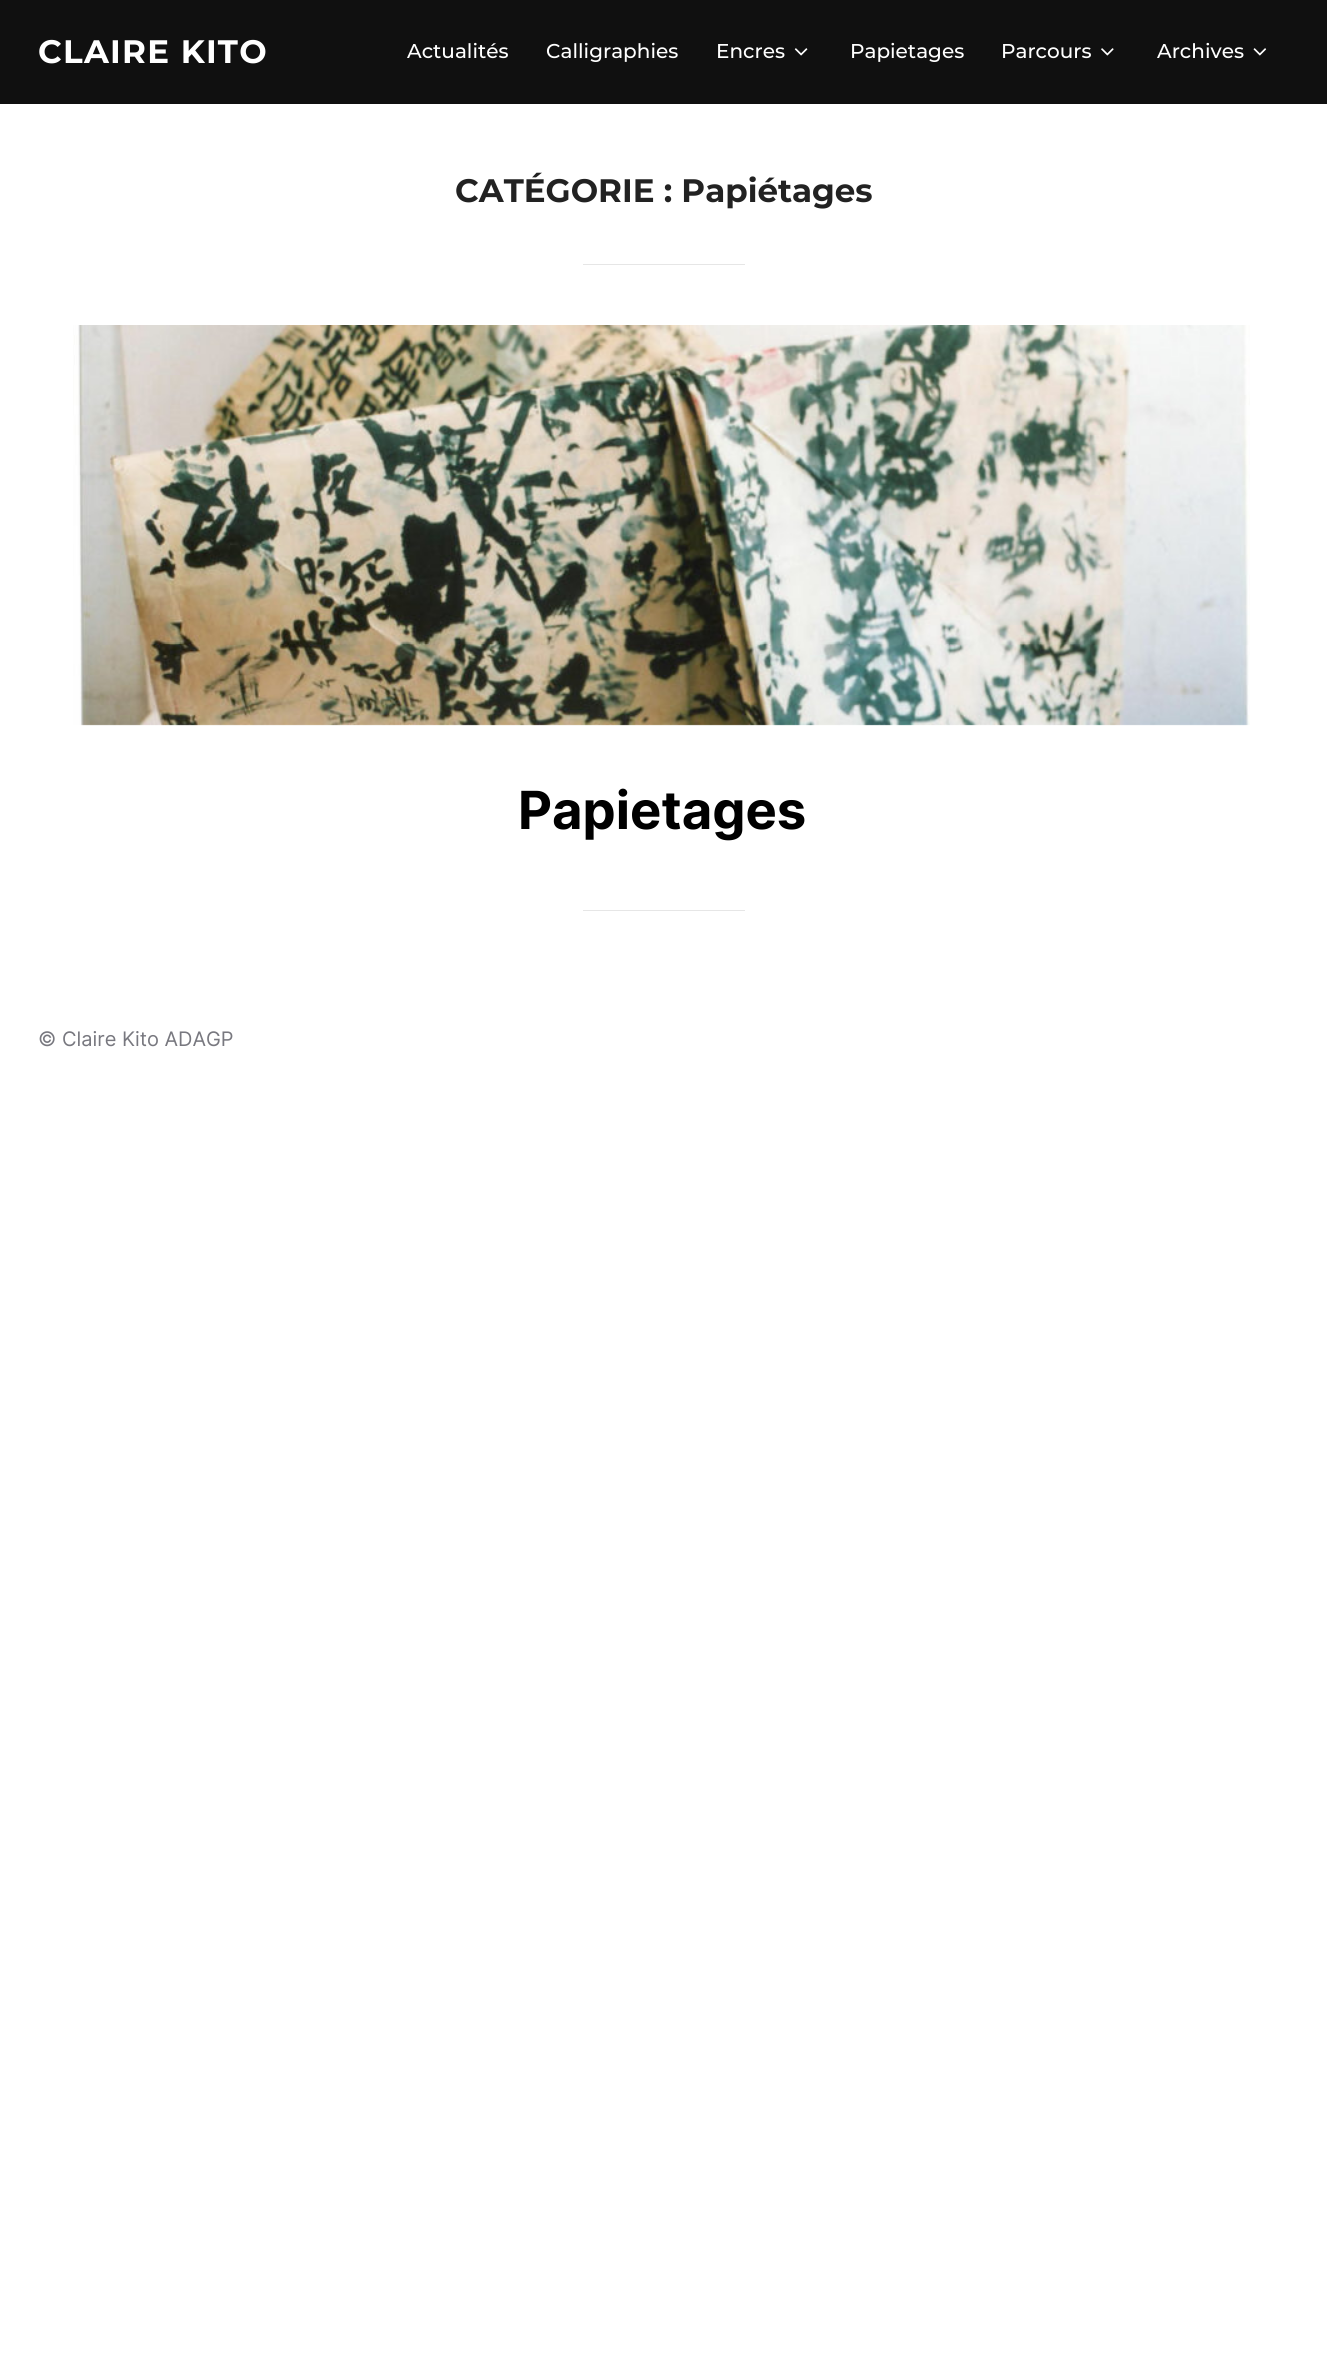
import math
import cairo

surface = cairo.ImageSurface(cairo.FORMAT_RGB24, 1327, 2358)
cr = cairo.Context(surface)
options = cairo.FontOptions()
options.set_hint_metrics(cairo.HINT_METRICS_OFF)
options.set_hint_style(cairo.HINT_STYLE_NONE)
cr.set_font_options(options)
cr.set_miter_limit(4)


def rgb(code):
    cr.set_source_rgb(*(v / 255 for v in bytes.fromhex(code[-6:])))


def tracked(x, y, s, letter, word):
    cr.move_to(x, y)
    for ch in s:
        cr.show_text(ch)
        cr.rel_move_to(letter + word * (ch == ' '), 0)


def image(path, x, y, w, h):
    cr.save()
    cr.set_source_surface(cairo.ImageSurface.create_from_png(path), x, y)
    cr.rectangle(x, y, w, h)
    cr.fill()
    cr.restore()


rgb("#ffffff")
cr.paint()
rgb("#101010")
cr.rectangle(0, 0, 1327, 104)
cr.fill()
image("img/1.png", 794, 48, 14, 8)
image("img/2.png", 1101, 48, 13, 8)
image("img/3.png", 1253, 48, 14, 8)
rgb("#e6e6e6")
cr.rectangle(583, 264, 162, 1)
cr.fill()
image("img/4.png", 73, 325, 1177, 401)
cr.rectangle(583, 910, 162, 1)
cr.fill()
cr.select_font_face("Montserrat", cairo.FONT_SLANT_NORMAL, cairo.FONT_WEIGHT_BOLD)
cr.set_font_size(32.5)
rgb("#ffffff")
tracked(38, 63, "CLAIRE KITO", 1.25, 0)
cr.select_font_face("Montserrat Medium")
cr.set_font_size(20)
for x, y, s in [
    (407, 58, "Actualités"),
    (546, 58, "Calligraphies"),
    (716, 58, "Encres"),
    (850, 58, "Papietages"),
    (1001, 58, "Parcours"),
    (1157, 58, "Archives"),
]:
    cr.move_to(x, y)
    cr.show_text(s)
cr.select_font_face("Montserrat", cairo.FONT_SLANT_NORMAL, cairo.FONT_WEIGHT_BOLD)
cr.set_font_size(32.5)
rgb("#222222")
cr.move_to(455, 202)
cr.show_text("CATÉGORIE : Papiétages")
cr.select_font_face("Inter", cairo.FONT_SLANT_NORMAL, cairo.FONT_WEIGHT_BOLD)
cr.set_font_size(52.5)
rgb("#000000")
cr.move_to(518, 829)
cr.show_text("Papietages")
cr.select_font_face("Inter")
cr.set_font_size(20)
rgb("#78787f")
cr.move_to(38, 1046)
cr.show_text("© Claire Kito ADAGP")
surface.write_to_png("page.png")
